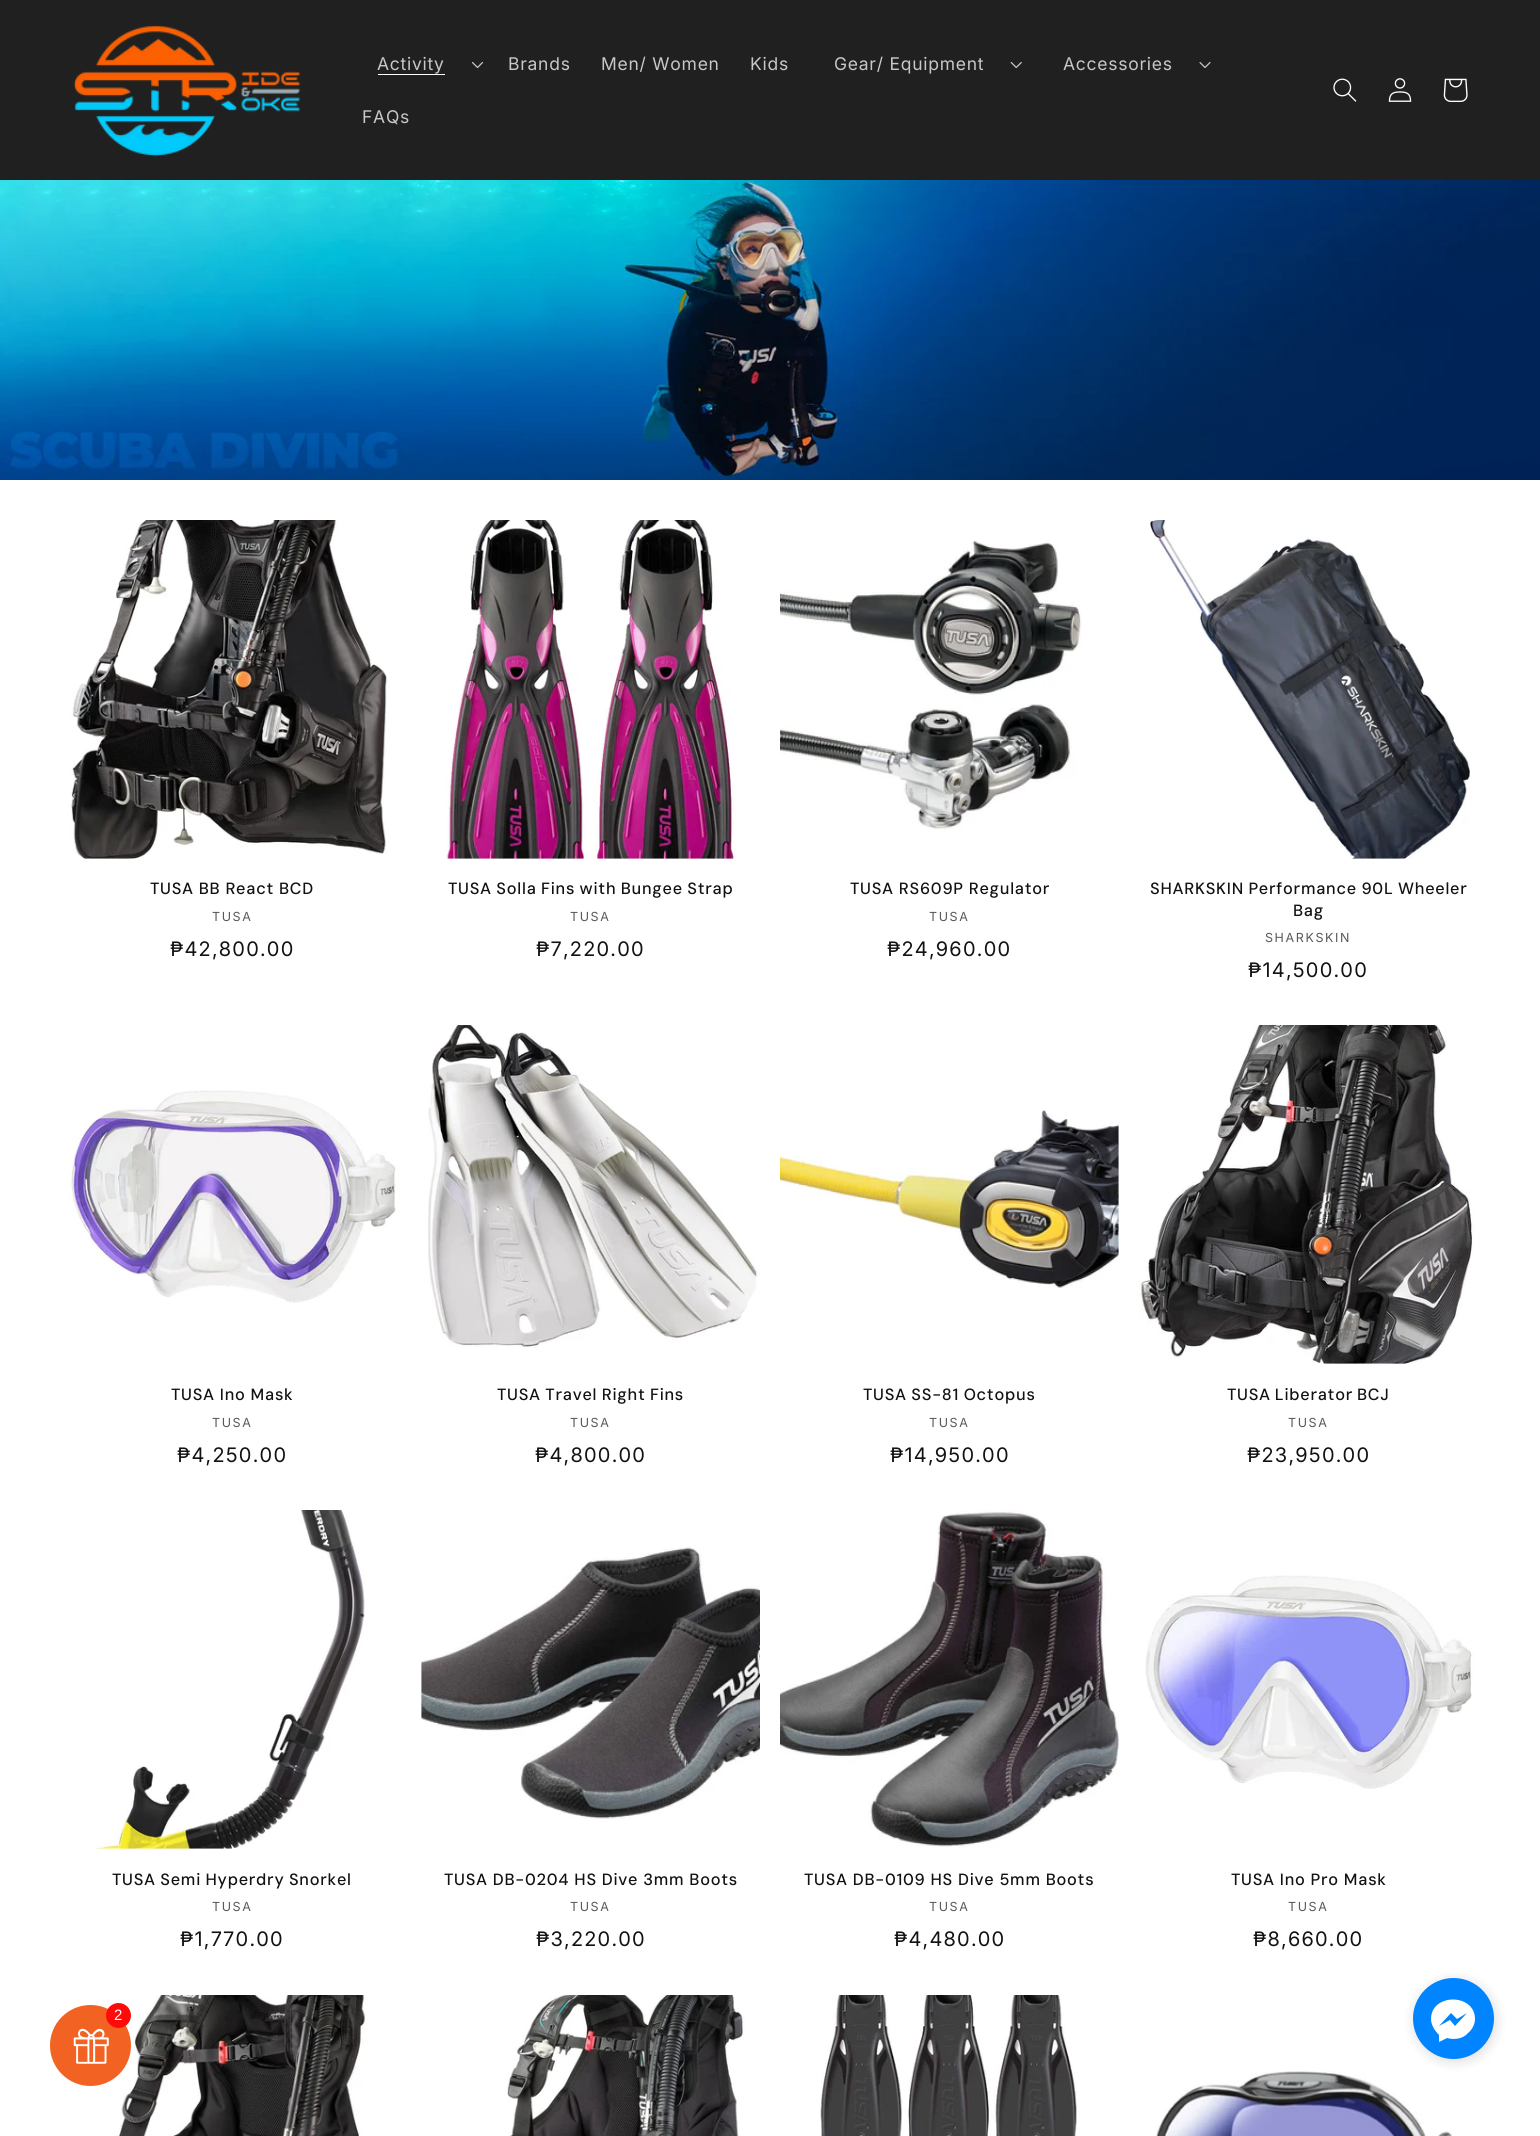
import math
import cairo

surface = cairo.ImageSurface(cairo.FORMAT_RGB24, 1540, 2136)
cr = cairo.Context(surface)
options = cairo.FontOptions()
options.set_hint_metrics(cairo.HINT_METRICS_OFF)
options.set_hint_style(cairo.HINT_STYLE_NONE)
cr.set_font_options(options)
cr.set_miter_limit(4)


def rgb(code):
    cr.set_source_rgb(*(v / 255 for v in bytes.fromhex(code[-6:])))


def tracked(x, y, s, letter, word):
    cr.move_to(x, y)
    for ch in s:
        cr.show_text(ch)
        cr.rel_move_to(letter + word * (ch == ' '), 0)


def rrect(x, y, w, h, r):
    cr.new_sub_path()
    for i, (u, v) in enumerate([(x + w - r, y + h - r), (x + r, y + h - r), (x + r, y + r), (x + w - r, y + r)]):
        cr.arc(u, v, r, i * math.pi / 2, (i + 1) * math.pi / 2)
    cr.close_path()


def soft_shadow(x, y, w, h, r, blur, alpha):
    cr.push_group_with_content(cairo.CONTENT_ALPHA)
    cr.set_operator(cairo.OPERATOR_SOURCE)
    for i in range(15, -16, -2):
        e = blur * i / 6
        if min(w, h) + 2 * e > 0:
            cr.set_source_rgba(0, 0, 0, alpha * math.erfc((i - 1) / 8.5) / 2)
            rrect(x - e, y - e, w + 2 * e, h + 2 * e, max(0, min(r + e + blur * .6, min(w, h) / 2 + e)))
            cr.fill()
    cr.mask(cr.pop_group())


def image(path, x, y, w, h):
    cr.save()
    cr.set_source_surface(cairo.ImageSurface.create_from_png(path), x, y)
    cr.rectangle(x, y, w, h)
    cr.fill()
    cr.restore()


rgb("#ffffff")
cr.paint()
rgb("#202020")
cr.rectangle(0, 0, 1540, 180)
cr.fill()
image("img/1.png", 73, 25, 228, 132)
rgb("#ffffff")
cr.rectangle(378, 74, 67, 1)
cr.fill()
image("img/2.png", 471, 61, 13, 8)
image("img/3.png", 1010, 61, 12, 8)
image("img/4.png", 1199, 62, 12, 6)
image("img/5.png", 1333, 78, 24, 24)
image("img/6.png", 1388, 78, 24, 24)
image("img/7.png", 1443, 78, 25, 24)
image("img/8.png", 0, 180, 1540, 300)
image("img/9.png", 70, 520, 318, 339)
image("img/10.png", 446, 520, 291, 339)
image("img/11.png", 780, 540, 302, 290)
image("img/12.png", 1150, 520, 320, 339)
image("img/13.png", 70, 1090, 326, 213)
image("img/14.png", 428, 1025, 332, 323)
image("img/15.png", 780, 1109, 339, 179)
image("img/16.png", 1139, 1025, 335, 339)
image("img/17.png", 96, 1510, 269, 339)
image("img/18.png", 421, 1547, 339, 272)
image("img/19.png", 780, 1510, 339, 338)
image("img/20.png", 1145, 1575, 329, 214)
image("img/21.png", 117, 1995, 250, 141)
image("img/22.png", 507, 1995, 238, 141)
image("img/23.png", 820, 1995, 257, 141)
image("img/24.png", 1156, 2071, 297, 65)
rgb("#f26323")
cr.arc(90.5, 2045.5, 40.5, 0, 2 * math.pi)
cr.fill()
image("img/25.png", 73, 2028, 36, 36)
rgb("#fe0a0a")
cr.arc(118.5, 2015.5, 12.5, 0, 2 * math.pi)
cr.fill()
rgb("#000000")
soft_shadow(1413, 1978, 86, 86, 43, 5.5, 0.07)
soft_shadow(1413, 1980, 81, 81, 40.5, 6, 0.05)
rgb("#0084ff")
cr.arc(1453.5, 2018.5, 40.5, 0, 2 * math.pi)
cr.fill()
rgb("#ffffff")
cr.set_fill_rule(cairo.FILL_RULE_EVEN_ODD)
cr.new_path()
cr.move_to(1431, 2019)
cr.curve_to(1431, 1993, 1475, 1993, 1475, 2019)
cr.curve_to(1475, 2024, 1472, 2030, 1468, 2033)
cr.curve_to(1463, 2039, 1454, 2040, 1447, 2038)
cr.line_to(1439, 2042)
cr.line_to(1439, 2035)
cr.curve_to(1435, 2031, 1431, 2025, 1431, 2019)
cr.close_path()
cr.move_to(1450, 2020)
cr.line_to(1455, 2026)
cr.line_to(1467, 2013)
cr.line_to(1457, 2019)
cr.line_to(1451, 2013)
cr.line_to(1439, 2026)
cr.close_path()
cr.fill()
cr.select_font_face("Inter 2")
cr.set_font_size(17.5)
rgb("#c7c7c7")
for x, y, s in [
    (377, 70, "Activity"),
    (508, 70, "Brands"),
    (601, 70, "Men/ Women"),
    (750, 70, "Kids"),
    (834, 70, "Gear/ Equipment"),
    (1063, 70, "Accessories"),
    (362, 123, "FAQs"),
]:
    tracked(x, y, s, 0.75, 0)
cr.select_font_face("DM Sans Medium")
cr.set_font_size(16.25)
rgb("#121212")
tracked(150, 894, "TUSA BB React BCD", 0.75, 0)
cr.select_font_face("Inter 2")
cr.set_font_size(12.5)
rgb("#595959")
tracked(212, 921, "TUSA", 1.6, 0)
cr.select_font_face("Inter")
cr.set_font_size(20)
rgb("#121212")
tracked(170, 956, "₱42,800.00", 1.25, 0)
cr.select_font_face("DM Sans Medium")
cr.set_font_size(16.25)
tracked(448, 894, "TUSA Solla Fins with Bungee Strap", 0.75, -0.5)
cr.select_font_face("Inter 2")
cr.set_font_size(12.5)
rgb("#595959")
tracked(570, 921, "TUSA", 1.6, 0)
cr.select_font_face("Inter")
cr.set_font_size(20)
rgb("#121212")
tracked(536, 956, "₱7,220.00", 1.25, 0)
cr.select_font_face("DM Sans Medium")
cr.set_font_size(16.25)
tracked(850, 894, "TUSA RS609P Regulator", 0.75, 0)
cr.select_font_face("Inter 2")
cr.set_font_size(12.5)
rgb("#595959")
tracked(929, 921, "TUSA", 1.6, 0)
cr.select_font_face("Inter")
cr.set_font_size(20)
rgb("#121212")
tracked(887, 956, "₱24,960.00", 1.25, 0)
cr.select_font_face("DM Sans Medium")
cr.set_font_size(16.25)
tracked(1150, 894, "SHARKSKIN Performance 90L Wheeler", 0.75, -0.5)
tracked(1293, 916, "Bag", 0.75, 0)
cr.select_font_face("Inter 2")
cr.set_font_size(12.5)
rgb("#595959")
tracked(1265, 942, "SHARKSKIN", 1.6, 0)
cr.select_font_face("Inter")
cr.set_font_size(20)
rgb("#121212")
tracked(1248, 977, "₱14,500.00", 1.25, 0)
cr.select_font_face("DM Sans Medium")
cr.set_font_size(16.25)
tracked(171, 1400, "TUSA Ino Mask", 0.75, 0)
cr.select_font_face("Inter 2")
cr.set_font_size(12.5)
rgb("#595959")
tracked(212, 1427, "TUSA", 1.6, 0)
cr.select_font_face("Inter")
cr.set_font_size(20)
rgb("#121212")
tracked(177, 1462, "₱4,250.00", 1.25, 0)
cr.select_font_face("DM Sans Medium")
cr.set_font_size(16.25)
tracked(497, 1400, "TUSA Travel Right Fins", 0.75, -0.5)
cr.select_font_face("Inter 2")
cr.set_font_size(12.5)
rgb("#595959")
tracked(570, 1427, "TUSA", 1.6, 0)
cr.select_font_face("Inter")
cr.set_font_size(20)
rgb("#121212")
tracked(535, 1462, "₱4,800.00", 1.25, 0)
cr.select_font_face("DM Sans Medium")
cr.set_font_size(16.25)
tracked(863, 1400, "TUSA SS-81 Octopus", 0.75, -0.5)
cr.select_font_face("Inter 2")
cr.set_font_size(12.5)
rgb("#595959")
tracked(929, 1427, "TUSA", 1.6, 0)
cr.select_font_face("Inter")
cr.set_font_size(20)
rgb("#121212")
tracked(890, 1462, "₱14,950.00", 1.25, 0)
cr.select_font_face("DM Sans Medium")
cr.set_font_size(16.25)
tracked(1227, 1400, "TUSA Liberator BCJ", 0.75, -1)
cr.select_font_face("Inter 2")
cr.set_font_size(12.5)
rgb("#595959")
tracked(1288, 1427, "TUSA", 1.6, 0)
cr.select_font_face("Inter")
cr.set_font_size(20)
rgb("#121212")
tracked(1247, 1462, "₱23,950.00", 1.25, 0)
cr.select_font_face("DM Sans Medium")
cr.set_font_size(16.25)
tracked(112, 1885, "TUSA Semi Hyperdry Snorkel", 0.75, -0.5)
cr.select_font_face("Inter 2")
cr.set_font_size(12.5)
rgb("#595959")
tracked(212, 1911, "TUSA", 1.6, 0)
cr.select_font_face("Inter")
cr.set_font_size(20)
rgb("#121212")
tracked(180, 1946, "₱1,770.00", 1.25, 0)
cr.select_font_face("DM Sans Medium")
cr.set_font_size(16.25)
tracked(444, 1885, "TUSA DB-0204 HS Dive 3mm Boots", 0.75, 0)
cr.select_font_face("Inter 2")
cr.set_font_size(12.5)
rgb("#595959")
tracked(570, 1911, "TUSA", 1.6, 0)
cr.select_font_face("Inter")
cr.set_font_size(20)
rgb("#121212")
tracked(536, 1946, "₱3,220.00", 1.25, 0)
cr.select_font_face("DM Sans Medium")
cr.set_font_size(16.25)
tracked(804, 1885, "TUSA DB-0109 HS Dive 5mm Boots", 0.75, 0)
cr.select_font_face("Inter 2")
cr.set_font_size(12.5)
rgb("#595959")
tracked(929, 1911, "TUSA", 1.6, 0)
cr.select_font_face("Inter")
cr.set_font_size(20)
rgb("#121212")
tracked(894, 1946, "₱4,480.00", 1.25, 0)
cr.select_font_face("DM Sans Medium")
cr.set_font_size(16.25)
tracked(1231, 1885, "TUSA Ino Pro Mask", 0.75, 0)
cr.select_font_face("Inter 2")
cr.set_font_size(12.5)
rgb("#595959")
tracked(1288, 1911, "TUSA", 1.6, 0)
cr.select_font_face("Inter")
cr.set_font_size(20)
rgb("#121212")
tracked(1253, 1946, "₱8,660.00", 1.25, 0)
cr.select_font_face("Liberation Sans")
cr.set_font_size(15)
rgb("#ffffff")
tracked(114, 2020, "2", 0.75, 0)
surface.write_to_png("page.png")
